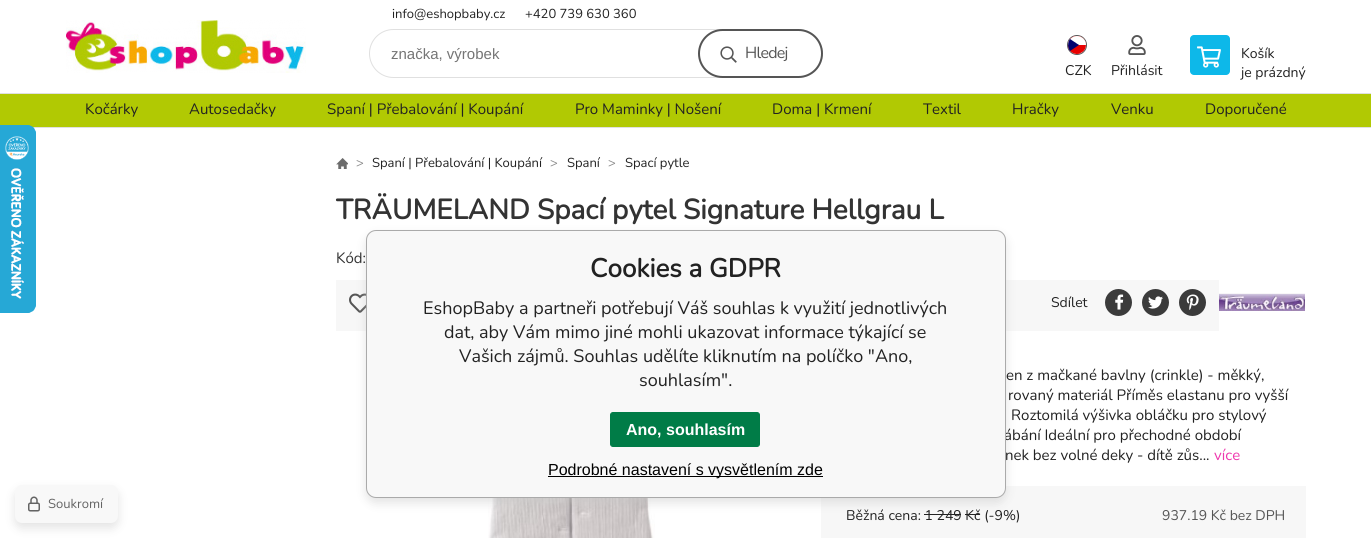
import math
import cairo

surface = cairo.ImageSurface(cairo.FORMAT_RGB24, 1371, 538)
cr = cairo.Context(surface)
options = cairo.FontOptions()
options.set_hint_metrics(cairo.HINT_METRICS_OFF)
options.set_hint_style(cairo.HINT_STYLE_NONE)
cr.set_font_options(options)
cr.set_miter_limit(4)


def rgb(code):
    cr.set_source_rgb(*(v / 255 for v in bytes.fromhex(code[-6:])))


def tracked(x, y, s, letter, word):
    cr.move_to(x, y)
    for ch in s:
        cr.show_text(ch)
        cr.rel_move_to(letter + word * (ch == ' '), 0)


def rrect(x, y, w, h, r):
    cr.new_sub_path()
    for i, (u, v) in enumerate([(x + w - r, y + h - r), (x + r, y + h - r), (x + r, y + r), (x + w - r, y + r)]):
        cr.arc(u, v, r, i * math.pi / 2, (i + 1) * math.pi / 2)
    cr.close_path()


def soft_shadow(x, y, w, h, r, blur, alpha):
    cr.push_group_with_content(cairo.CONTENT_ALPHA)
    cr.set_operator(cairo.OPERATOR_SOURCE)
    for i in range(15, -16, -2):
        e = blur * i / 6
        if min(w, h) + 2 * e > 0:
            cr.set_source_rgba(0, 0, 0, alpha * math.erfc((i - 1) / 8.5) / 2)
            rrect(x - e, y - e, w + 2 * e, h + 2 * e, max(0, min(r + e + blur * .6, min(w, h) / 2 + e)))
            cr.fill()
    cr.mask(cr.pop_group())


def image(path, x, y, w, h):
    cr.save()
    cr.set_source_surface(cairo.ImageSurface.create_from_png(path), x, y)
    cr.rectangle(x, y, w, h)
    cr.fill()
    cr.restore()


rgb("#ffffff")
cr.paint()
rgb("#b1c903")
cr.rectangle(0, 94, 1371, 33)
cr.fill()
rgb("#e0e0e0")
cr.rectangle(33, 127, 1338, 1)
cr.fill()
image("img/1.png", 0, 125, 36, 188)
image("img/2.png", 66, 20, 240, 53)
rrect(369.5, 29.5, 453, 48, 24)
cr.set_line_width(1)
cr.stroke()
image("img/3.png", 720, 46, 17, 17)
rrect(699, 30, 123, 47, 23.5)
rgb("#555555")
cr.set_line_width(2)
cr.stroke()
cr.arc(1077, 45, 9.5, 0, 2 * math.pi)
cr.set_line_width(1)
cr.stroke()
rgb("#e80000")
cr.new_path()
cr.move_to(1077, 36)
cr.curve_to(1086.5, 36, 1089.5, 49.5, 1080.5, 53)
cr.curve_to(1079.5, 54, 1078, 54, 1076.5, 54)
cr.curve_to(1065, 53, 1065.5, 36, 1077, 36)
cr.close_path()
cr.fill()
rgb("#ffffff")
cr.new_path()
cr.move_to(1077, 36)
cr.curve_to(1082, 36, 1086, 40, 1086, 45)
cr.line_to(1068, 45)
cr.curve_to(1068, 40, 1072, 36, 1077, 36)
cr.close_path()
cr.fill()
rgb("#00006f")
cr.new_path()
cr.move_to(1070, 39)
cr.curve_to(1067.5, 42.5, 1067.5, 47.5, 1070, 51)
cr.line_to(1079, 45)
cr.close_path()
cr.fill()
image("img/4.png", 1128, 35, 18, 20)
rgb("#0db8e9")
rrect(1190, 35, 40, 40, 4)
cr.fill()
image("img/5.png", 1197, 46, 24, 22)
rgb("#e0e0e0")
cr.rectangle(0, 93, 1371, 1)
cr.fill()
image("img/6.png", 336, 158, 12, 11)
rgb("#f7f7f7")
cr.rectangle(336, 280, 883, 51)
cr.fill()
image("img/7.png", 349, 293, 17, 20)
image("img/8.png", 1219, 293, 86, 18)
rgb("#3b3b3b")
cr.arc(1118.5, 302.5, 13.5, 0, 2 * math.pi)
cr.fill()
image("img/9.png", 1115, 294, 9, 16)
cr.arc(1155.5, 302.5, 13.5, 0, 2 * math.pi)
cr.fill()
image("img/10.png", 1148, 296, 15, 13)
cr.arc(1192.5, 302.5, 13.5, 0, 2 * math.pi)
cr.fill()
image("img/11.png", 1186, 294, 13, 16)
image("img/12.png", 488, 498, 167, 40)
for x, y, w, h, color in [
    (821, 486, 485, 52, "#f7f7f7"),
    (924, 514, 37, 1, "#222222"),
    (965, 514, 15, 1, "#222222"),
]:
    rgb(color)
    cr.rectangle(x, y, w, h)
    cr.fill()
rgb("#c8c8c8")
soft_shadow(366, 235, 640, 268, 10, 5, 0.5)
soft_shadow(15, 490, 103, 38, 7, 5, 0.5)
rgb("#f8f8f8")
rrect(15, 485, 103, 38, 7)
cr.fill()
image("img/13.png", 28, 496, 12, 16)
cr.select_font_face("Nunito ExtraLight")
cr.set_font_size(13)
rgb("#222222")
cr.move_to(392, 18)
cr.show_text("info@eshopbaby.cz")
cr.move_to(525, 18)
cr.show_text("+420 739 630 360")
cr.select_font_face("Liberation Sans")
cr.set_font_size(15)
rgb("#757575")
cr.move_to(391, 59)
cr.show_text("značka, výrobek")
cr.select_font_face("Nunito ExtraLight")
cr.set_font_size(16)
rgb("#555555")
tracked(745, 58, "Hledej", -0.75, 0)
cr.set_font_size(14)
rgb("#222222")
for x, y, s in [
    (1065, 75, "CZK"),
    (1111, 75, "Přihlásit"),
    (1241, 58, "Košík"),
    (1241, 77, "je prázdný"),
]:
    cr.move_to(x, y)
    cr.show_text(s)
cr.set_font_size(15)
for x, y, s in [
    (85, 114, "Kočárky"),
    (189, 114, "Autosedačky"),
    (327, 114, "Spaní | Přebalování | Koupání"),
    (575, 114, "Pro Maminky | Nošení"),
    (772, 114, "Doma | Krmení"),
    (923, 114, "Textil"),
    (1012, 114, "Hračky"),
    (1111, 114, "Venku"),
    (1205, 114, "Doporučené"),
]:
    cr.move_to(x, y)
    cr.show_text(s)
cr.set_font_size(13)
rgb("#888888")
cr.move_to(356, 167)
cr.show_text(">")
rgb("#222222")
cr.move_to(372, 167)
cr.show_text("Spaní | Přebalování | Koupání")
rgb("#888888")
cr.move_to(550, 167)
cr.show_text(">")
rgb("#222222")
cr.move_to(567, 167)
cr.show_text("Spaní")
rgb("#888888")
cr.move_to(608, 167)
cr.show_text(">")
rgb("#222222")
cr.move_to(625, 167)
cr.show_text("Spací pytle")
cr.select_font_face("Nunito", cairo.FONT_SLANT_NORMAL, cairo.FONT_WEIGHT_BOLD)
cr.set_font_size(28)
rgb("#333333")
cr.move_to(336, 219)
cr.show_text("TRÄUMELAND Spací pytel Signature Hellgrau L")
cr.select_font_face("Nunito ExtraLight")
cr.set_font_size(15)
cr.move_to(336, 263)
cr.show_text("Kód:")
cr.set_font_size(14)
rgb("#222222")
cr.move_to(1051, 307)
cr.show_text("Sdílet")
cr.set_font_size(15)
for x, y, s in [
    (1006, 380, "en z mačkané bavlny (crinkle) - měkký,"),
    (1008, 400, "rovaný materiál Příměs elastanu pro vyšší"),
    (1011, 420, "Roztomilá výšivka obláčku pro stylový"),
    (1004, 440, "ábání Ideální pro přechodné období"),
    (1005, 460, "nek bez volné deky - dítě zůs..."),
]:
    cr.move_to(x, y)
    cr.show_text(s)
rgb("#ee37ad")
cr.move_to(1214, 460)
cr.show_text("více")
cr.set_font_size(14)
rgb("#222222")
cr.move_to(846, 520)
cr.show_text("Běžná cena: 1 249 Kč (-9%)")
rgb("#555555")
cr.move_to(1162, 520)
cr.show_text("937.19 Kč bez DPH")
rgb("#f8f8f8")
rrect(366.5, 230.5, 639, 267, 9.5)
cr.fill_preserve()
rgb("#aaaaaa")
cr.stroke()
cr.select_font_face("Nunito", cairo.FONT_SLANT_NORMAL, cairo.FONT_WEIGHT_BOLD)
cr.set_font_size(26)
rgb("#222222")
cr.move_to(590, 277)
cr.show_text("Cookies a GDPR")
cr.select_font_face("Nunito ExtraLight")
cr.set_font_size(18)
for x, y, s in [
    (423, 314, "EshopBaby a partneři potřebují Váš souhlas k využití jednotlivých"),
    (444, 338, "dat, aby Vám mimo jiné mohli ukazovat informace týkající se"),
    (459, 362, "Vašich zájmů. Souhlas udělíte kliknutím na políčko \"Ano,"),
    (639, 386, "souhlasím\"."),
]:
    cr.move_to(x, y)
    cr.show_text(s)
rgb("#007c47")
rrect(610.5, 412.5, 149, 34, 2.5)
cr.fill_preserve()
cr.stroke()
cr.select_font_face("Liberation Sans", cairo.FONT_SLANT_NORMAL, cairo.FONT_WEIGHT_BOLD)
cr.set_font_size(16)
rgb("#ffffff")
cr.move_to(626, 435)
cr.show_text("Ano, souhlasím")
rgb("#000000")
cr.rectangle(548, 476, 275, 1)
cr.fill()
cr.select_font_face("Liberation Sans")
cr.move_to(548, 475)
cr.show_text("Podrobné nastavení s vysvětlením zde")
cr.select_font_face("Nunito ExtraLight")
cr.set_font_size(13)
rgb("#646464")
cr.move_to(48, 508)
cr.show_text("Soukromí")
surface.write_to_png("page.png")
